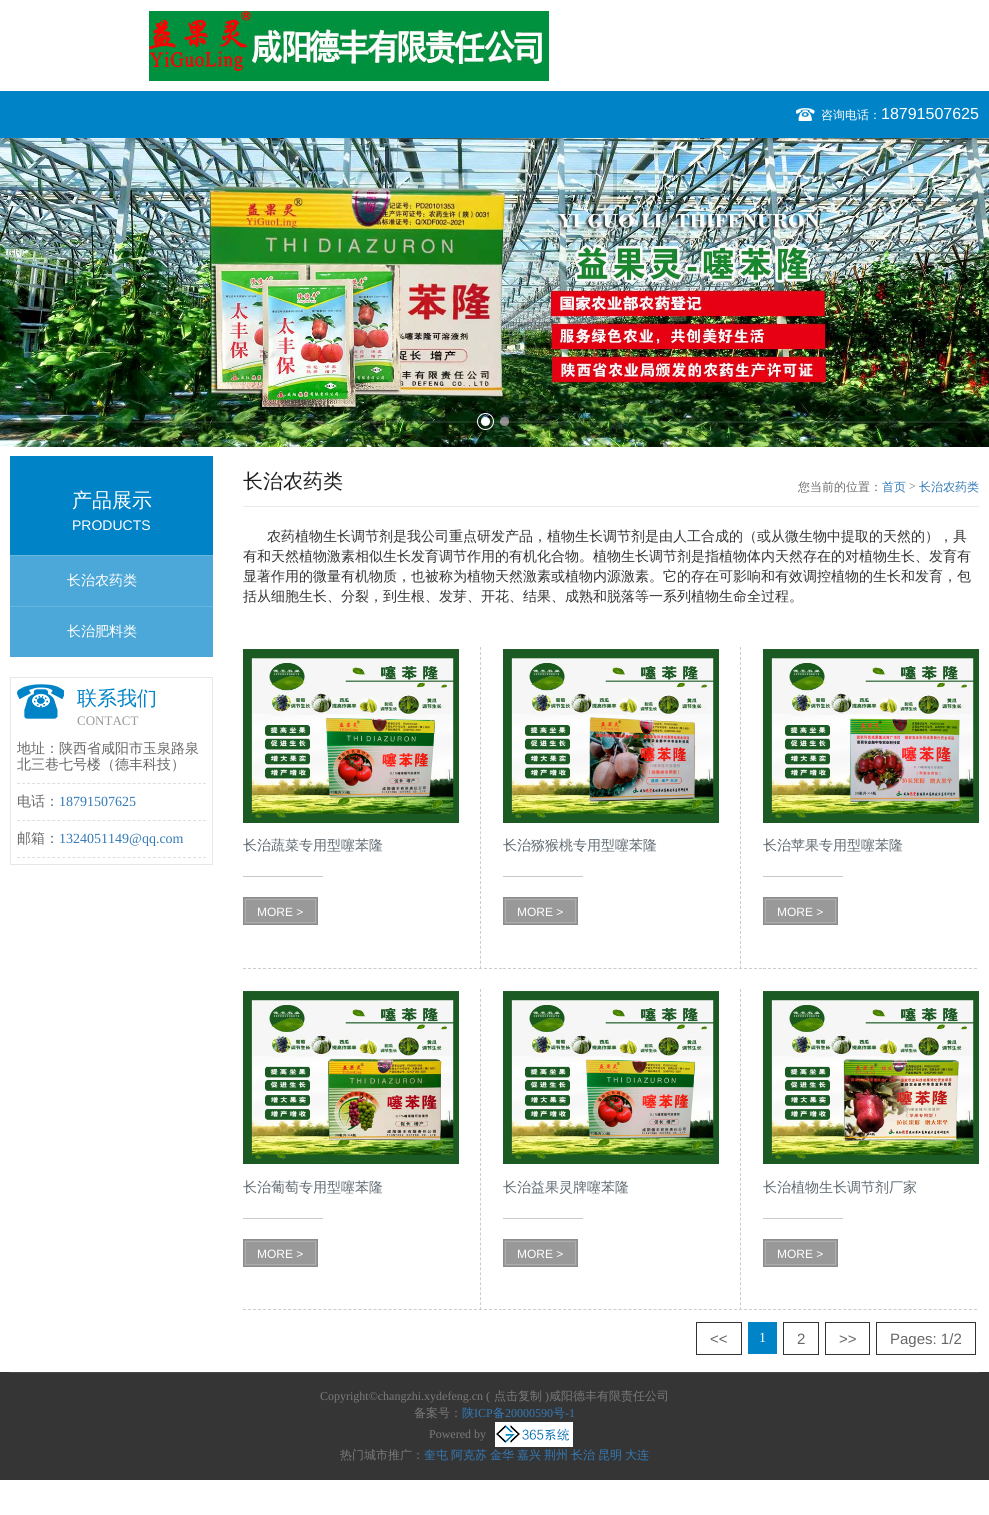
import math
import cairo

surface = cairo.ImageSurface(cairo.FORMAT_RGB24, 989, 1515)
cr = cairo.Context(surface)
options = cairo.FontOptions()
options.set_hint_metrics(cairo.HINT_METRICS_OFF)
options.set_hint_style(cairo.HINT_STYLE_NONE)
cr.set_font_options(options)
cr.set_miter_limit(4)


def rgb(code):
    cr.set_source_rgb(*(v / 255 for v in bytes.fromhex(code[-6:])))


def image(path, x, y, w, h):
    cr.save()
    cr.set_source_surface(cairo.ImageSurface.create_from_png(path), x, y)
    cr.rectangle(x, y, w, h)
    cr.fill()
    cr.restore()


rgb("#ffffff")
cr.paint()
image("img/1.png", 149, 11, 400, 70)
rgb("#0083c7")
cr.rectangle(0, 91, 989, 47)
cr.fill()
image("img/2.png", 796, 108, 19, 13)
image("img/3.png", 0, 138, 989, 309)
rgb("#ffffff")
cr.arc(485.5, 421.5, 4.5, 0, 2 * math.pi)
cr.fill()
cr.arc(485.5, 421.5, 8, 0, 2 * math.pi)
cr.set_line_width(1)
cr.stroke()
rgb("#8f898b")
cr.arc(504.5, 421.5, 4.5, 0, 2 * math.pi)
cr.fill()
cr.set_source_rgba(1, 1, 1, 0.1)
cr.rectangle(0, 421, 989, 2)
cr.fill()
rgb("#0083c7")
cr.rectangle(10, 456, 203, 99)
cr.fill()
rgb("#4ca8d8")
cr.rectangle(10, 556, 203, 101)
cr.fill()
rgb("#67b5de")
cr.rectangle(10, 555, 203, 1)
cr.rectangle(10, 606, 203, 1)
cr.fill()
cr.rectangle(10.5, 677.5, 202, 187)
rgb("#e6e6e6")
cr.stroke()
image("img/4.png", 17, 684, 47, 35)
cr.new_path()
cr.move_to(17, 783.5)
cr.line_to(206, 783.5)
rgb("#dfdfdf")
cr.set_dash([3, 2.03])
cr.stroke()
cr.new_path()
cr.move_to(17, 820.5)
cr.line_to(206, 820.5)
cr.stroke()
cr.new_path()
cr.move_to(17, 857.5)
cr.line_to(206, 857.5)
cr.stroke()
rgb("#eaeaea")
cr.rectangle(243, 506, 736, 1)
cr.fill()
image("img/5.png", 243, 649, 216, 174)
cr.new_path()
cr.move_to(243, 968.5)
cr.line_to(502, 968.5)
rgb("#cccccc")
cr.set_dash([3, 2.02])
cr.stroke()
cr.new_path()
cr.move_to(480.5, 647)
cr.line_to(480.5, 969)
cr.set_dash([3, 1.98])
cr.stroke()
rgb("#c9c9c9")
cr.rectangle(243, 876, 80, 1)
cr.fill()
rgb("#999999")
cr.rectangle(243.5, 897.5, 74, 27)
cr.fill_preserve()
rgb("#8c8c8c")
cr.set_dash([])
cr.stroke()
cr.rectangle(245.5, 899.5, 70, 23)
rgb("#adadad")
cr.stroke()
image("img/6.png", 503, 649, 216, 174)
cr.new_path()
cr.move_to(503, 968.5)
cr.line_to(762, 968.5)
rgb("#cccccc")
cr.set_dash([3, 2.02])
cr.stroke()
cr.new_path()
cr.move_to(740.5, 647)
cr.line_to(740.5, 969)
cr.set_dash([3, 1.98])
cr.stroke()
rgb("#c9c9c9")
cr.rectangle(503, 876, 80, 1)
cr.fill()
rgb("#999999")
cr.rectangle(503.5, 897.5, 74, 27)
cr.fill_preserve()
rgb("#8c8c8c")
cr.set_dash([])
cr.stroke()
cr.rectangle(505.5, 899.5, 70, 23)
rgb("#adadad")
cr.stroke()
image("img/7.png", 763, 649, 216, 174)
rgb("#c9c9c9")
cr.rectangle(763, 876, 80, 1)
cr.fill()
rgb("#999999")
cr.rectangle(763.5, 897.5, 74, 27)
cr.fill_preserve()
rgb("#8c8c8c")
cr.stroke()
cr.rectangle(765.5, 899.5, 70, 23)
rgb("#adadad")
cr.stroke()
cr.save()
cr.rectangle(243, 627, 736, 683)
cr.clip()
cr.new_path()
cr.move_to(763, 968.5)
cr.line_to(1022, 968.5)
rgb("#cccccc")
cr.set_dash([3, 2.02])
cr.stroke()
cr.restore()
image("img/8.png", 243, 991, 216, 173)
cr.new_path()
cr.move_to(243, 1309.5)
cr.line_to(502, 1309.5)
rgb("#cccccc")
cr.set_dash([3, 2.02])
cr.stroke()
cr.new_path()
cr.move_to(480.5, 989)
cr.line_to(480.5, 1310)
cr.set_dash([3, 1.97])
cr.stroke()
rgb("#c9c9c9")
cr.rectangle(243, 1218, 80, 1)
cr.fill()
rgb("#999999")
cr.rectangle(243.5, 1239.5, 74, 27)
cr.fill_preserve()
rgb("#8c8c8c")
cr.set_dash([])
cr.stroke()
cr.rectangle(245.5, 1241.5, 70, 23)
rgb("#adadad")
cr.stroke()
image("img/9.png", 503, 991, 216, 173)
cr.new_path()
cr.move_to(503, 1309.5)
cr.line_to(762, 1309.5)
rgb("#cccccc")
cr.set_dash([3, 2.02])
cr.stroke()
cr.new_path()
cr.move_to(740.5, 989)
cr.line_to(740.5, 1310)
cr.set_dash([3, 1.97])
cr.stroke()
rgb("#c9c9c9")
cr.rectangle(503, 1218, 80, 1)
cr.fill()
rgb("#999999")
cr.rectangle(503.5, 1239.5, 74, 27)
cr.fill_preserve()
rgb("#8c8c8c")
cr.set_dash([])
cr.stroke()
cr.rectangle(505.5, 1241.5, 70, 23)
rgb("#adadad")
cr.stroke()
image("img/10.png", 763, 991, 216, 173)
rgb("#c9c9c9")
cr.rectangle(763, 1218, 80, 1)
cr.fill()
rgb("#999999")
cr.rectangle(763.5, 1239.5, 74, 27)
cr.fill_preserve()
rgb("#8c8c8c")
cr.stroke()
cr.rectangle(765.5, 1241.5, 70, 23)
rgb("#adadad")
cr.stroke()
cr.save()
cr.rectangle(243, 627, 736, 683)
cr.clip()
cr.new_path()
cr.move_to(763, 1309.5)
cr.line_to(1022, 1309.5)
rgb("#cccccc")
cr.set_dash([3, 2.02])
cr.stroke()
cr.restore()
cr.rectangle(696.5, 1322.5, 45, 32)
rgb("#333333")
cr.stroke()
rgb("#0083c7")
cr.rectangle(748, 1322, 29, 32)
cr.fill()
cr.rectangle(783.5, 1322.5, 35, 32)
rgb("#333333")
cr.stroke()
cr.rectangle(825.5, 1322.5, 44, 32)
cr.stroke()
cr.rectangle(876.5, 1322.5, 99, 32)
cr.stroke()
rgb("#353535")
cr.rectangle(0, 1372, 989, 108)
cr.fill()
rgb("#484848")
cr.rectangle(10, 1372, 969, 1)
cr.fill()
image("img/11.png", 495, 1422, 78, 25)
cr.select_font_face("WenQuanYi Zen Hei Medium")
cr.set_font_size(12)
rgb("#ffffff")
cr.move_to(821, 119)
cr.show_text("咨询电话：")
cr.select_font_face("Liberation Sans")
cr.set_font_size(16)
cr.move_to(881, 119)
cr.show_text("18791507625")
cr.select_font_face("WenQuanYi Zen Hei Medium")
cr.set_font_size(20)
cr.move_to(72, 507)
cr.show_text("产品展示")
cr.select_font_face("Liberation Sans")
cr.set_font_size(14)
cr.move_to(72, 530)
cr.show_text("PRODUCTS")
cr.select_font_face("WenQuanYi Zen Hei Medium")
cr.move_to(67, 585)
cr.show_text("长治农药类")
cr.move_to(67, 636)
cr.show_text("长治肥料类")
cr.set_font_size(20)
rgb("#0083c7")
cr.move_to(77, 705)
cr.show_text("联系我们")
cr.select_font_face("Liberation Serif")
cr.set_font_size(13)
rgb("#999999")
cr.move_to(77, 725)
cr.show_text("CONTACT")
cr.select_font_face("WenQuanYi Zen Hei Medium")
cr.set_font_size(14)
rgb("#666666")
for x, y, s in [
    (17, 753, "地址：陕西省咸阳市玉泉路泉"),
    (17, 769, "北三巷七号楼（德丰科技）"),
    (17, 806, "电话："),
]:
    cr.move_to(x, y)
    cr.show_text(s)
cr.select_font_face("Liberation Serif")
rgb("#337ab7")
cr.move_to(59, 806)
cr.show_text("18791507625")
cr.select_font_face("WenQuanYi Zen Hei Medium")
rgb("#666666")
cr.move_to(17, 843)
cr.show_text("邮箱：")
cr.select_font_face("Liberation Serif")
rgb("#337ab7")
cr.move_to(59, 843)
cr.show_text("1324051149@qq.com")
cr.select_font_face("WenQuanYi Zen Hei Medium")
cr.set_font_size(20)
rgb("#1f1f1f")
cr.move_to(243, 488)
cr.show_text("长治农药类")
cr.set_font_size(12)
rgb("#6e6e6e")
cr.move_to(798, 491)
cr.show_text("您当前的位置：")
rgb("#337ab7")
cr.move_to(882, 491)
cr.show_text("首页")
cr.select_font_face("Liberation Serif")
rgb("#6e6e6e")
cr.move_to(909, 490)
cr.show_text(">")
cr.select_font_face("WenQuanYi Zen Hei Medium")
rgb("#337ab7")
cr.move_to(919, 491)
cr.show_text("长治农药类")
cr.set_font_size(14)
rgb("#333333")
for x, y, s in [
    (267, 541, "农药植物生长调节剂是我公司重点研发产品，植物生长调节剂是由人工合成的（或从微生物中提取的天然的），具"),
    (243, 561, "有和天然植物激素相似生长发育调节作用的有机化合物。植物生长调节剂是指植物体内天然存在的对植物生长、发育有"),
    (243, 581, "显著作用的微量有机物质，也被称为植物天然激素或植物内源激素。它的存在可影响和有效调控植物的生长和发育，包"),
    (243, 601, "括从细胞生长、分裂，到生根、发芽、开花、结果、成熟和脱落等一系列植物生命全过程。"),
]:
    cr.move_to(x, y)
    cr.show_text(s)
rgb("#606a71")
cr.move_to(243, 850)
cr.show_text("长治蔬菜专用型噻苯隆")
cr.select_font_face("Liberation Sans")
cr.set_font_size(12)
rgb("#ffffff")
cr.move_to(257, 916)
cr.show_text("MORE >")
cr.select_font_face("WenQuanYi Zen Hei Medium")
cr.set_font_size(14)
rgb("#606a71")
cr.move_to(503, 850)
cr.show_text("长治猕猴桃专用型噻苯隆")
cr.select_font_face("Liberation Sans")
cr.set_font_size(12)
rgb("#ffffff")
cr.move_to(517, 916)
cr.show_text("MORE >")
cr.select_font_face("WenQuanYi Zen Hei Medium")
cr.set_font_size(14)
rgb("#606a71")
cr.move_to(763, 850)
cr.show_text("长治苹果专用型噻苯隆")
cr.select_font_face("Liberation Sans")
cr.set_font_size(12)
rgb("#ffffff")
cr.move_to(777, 916)
cr.show_text("MORE >")
cr.select_font_face("WenQuanYi Zen Hei Medium")
cr.set_font_size(14)
rgb("#606a71")
cr.move_to(243, 1192)
cr.show_text("长治葡萄专用型噻苯隆")
cr.select_font_face("Liberation Sans")
cr.set_font_size(12)
rgb("#ffffff")
cr.move_to(257, 1258)
cr.show_text("MORE >")
cr.select_font_face("WenQuanYi Zen Hei Medium")
cr.set_font_size(14)
rgb("#606a71")
cr.move_to(503, 1192)
cr.show_text("长治益果灵牌噻苯隆")
cr.select_font_face("Liberation Sans")
cr.set_font_size(12)
rgb("#ffffff")
cr.move_to(517, 1258)
cr.show_text("MORE >")
cr.select_font_face("WenQuanYi Zen Hei Medium")
cr.set_font_size(14)
rgb("#606a71")
cr.move_to(763, 1192)
cr.show_text("长治植物生长调节剂厂家")
cr.select_font_face("Liberation Sans")
cr.set_font_size(12)
rgb("#ffffff")
cr.move_to(777, 1258)
cr.show_text("MORE >")
cr.set_font_size(15)
rgb("#666666")
cr.move_to(710, 1344)
cr.show_text("<<")
cr.select_font_face("Liberation Serif")
cr.set_font_size(14)
rgb("#ffffff")
cr.move_to(759, 1342)
cr.show_text("1")
cr.select_font_face("Liberation Sans")
cr.set_font_size(15)
rgb("#666666")
for x, y, s in [
    (797, 1344, "2"),
    (839, 1344, ">>"),
    (890, 1344, "Pages: 1/2"),
]:
    cr.move_to(x, y)
    cr.show_text(s)
cr.select_font_face("Liberation Serif")
cr.set_font_size(12)
rgb("#7a7a7a")
cr.move_to(320, 1400)
cr.show_text("Copyright©changzhi.xydefeng.cn (")
cr.select_font_face("WenQuanYi Zen Hei Medium")
cr.move_to(494, 1400)
cr.show_text("点击复制")
cr.select_font_face("Liberation Serif")
cr.move_to(545, 1400)
cr.show_text(")")
cr.select_font_face("WenQuanYi Zen Hei Medium")
cr.move_to(549, 1400)
cr.show_text("咸阳德丰有限责任公司")
cr.move_to(414, 1417)
cr.show_text("备案号：")
rgb("#337ab7")
cr.move_to(462, 1417)
cr.show_text("陕")
cr.select_font_face("Liberation Serif")
cr.move_to(474, 1417)
cr.show_text("ICP")
cr.select_font_face("WenQuanYi Zen Hei Medium")
cr.move_to(493, 1417)
cr.show_text("备")
cr.select_font_face("Liberation Serif")
cr.move_to(505, 1417)
cr.show_text("20000590")
cr.select_font_face("WenQuanYi Zen Hei Medium")
cr.move_to(553, 1417)
cr.show_text("号")
cr.select_font_face("Liberation Serif")
cr.move_to(565, 1417)
cr.show_text("-1")
rgb("#7a7a7a")
cr.move_to(429, 1438)
cr.show_text("Powered by")
cr.select_font_face("WenQuanYi Zen Hei Medium")
cr.move_to(340, 1459)
cr.show_text("热门城市推广：")
rgb("#337ab7")
for x, y, s in [
    (424, 1459, "奎屯"),
    (451, 1459, "阿克苏"),
    (490, 1459, "金华"),
    (517, 1459, "嘉兴"),
    (544, 1459, "荆州"),
    (571, 1459, "长治"),
    (598, 1459, "昆明"),
    (625, 1459, "大连"),
]:
    cr.move_to(x, y)
    cr.show_text(s)
surface.write_to_png("page.png")
